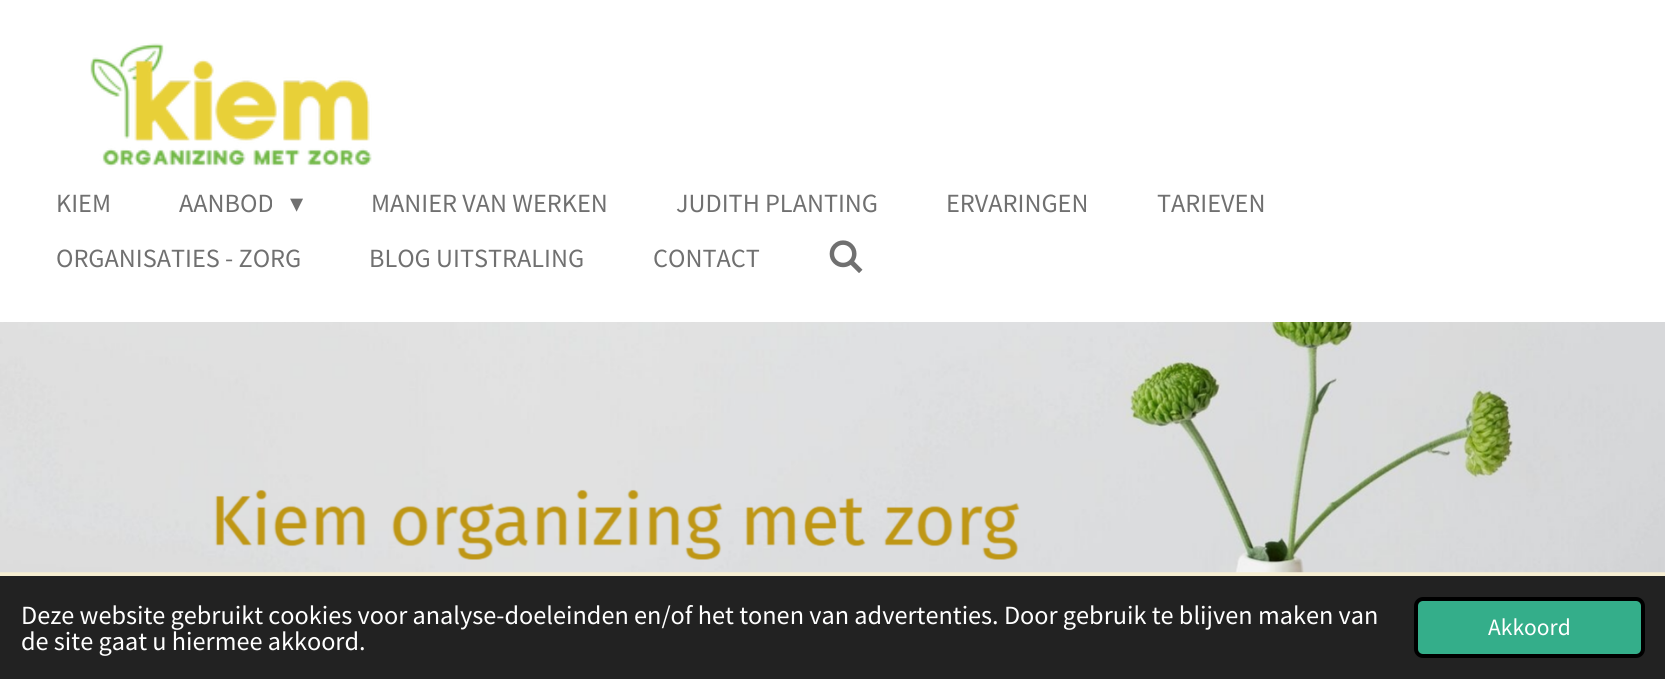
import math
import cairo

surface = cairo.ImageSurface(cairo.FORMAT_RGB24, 1665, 679)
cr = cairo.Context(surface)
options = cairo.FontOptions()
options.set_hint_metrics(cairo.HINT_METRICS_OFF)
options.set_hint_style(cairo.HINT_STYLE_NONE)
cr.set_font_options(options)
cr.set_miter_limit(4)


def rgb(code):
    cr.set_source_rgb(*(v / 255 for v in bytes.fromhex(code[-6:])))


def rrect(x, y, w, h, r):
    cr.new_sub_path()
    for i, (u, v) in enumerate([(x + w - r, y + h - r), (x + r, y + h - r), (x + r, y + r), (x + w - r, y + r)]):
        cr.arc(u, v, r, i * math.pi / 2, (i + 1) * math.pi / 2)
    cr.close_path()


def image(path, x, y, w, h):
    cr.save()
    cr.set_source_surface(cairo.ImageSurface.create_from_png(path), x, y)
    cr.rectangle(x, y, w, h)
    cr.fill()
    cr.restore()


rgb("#ffffff")
cr.paint()
image("img/1.png", 90, 43, 282, 124)
image("img/2.png", 829, 240, 34, 33)
rgb("#f6eed2")
cr.rectangle(0, 572, 1665, 4)
cr.fill()
image("img/3.png", 0, 322, 1665, 251)
rgb("#222222")
cr.rectangle(0, 576, 1665, 103)
cr.fill()
rgb("#34ae8a")
rrect(1416, 599, 227, 57, 7)
cr.fill_preserve()
rgb("#000000")
cr.set_line_width(4)
cr.stroke()
cr.select_font_face("Source Sans Pro")
cr.set_font_size(26.25)
rgb("#707070")
cr.move_to(56, 212)
cr.show_text("KIEM")
cr.move_to(179, 212)
cr.show_text("AANBOD")
cr.select_font_face("DejaVu Sans")
cr.move_to(290, 212)
cr.show_text("▾")
cr.select_font_face("Source Sans Pro")
for x, y, s in [
    (371, 212, "MANIER VAN WERKEN"),
    (676, 212, "JUDITH PLANTING"),
    (946, 212, "ERVARINGEN"),
    (1157, 212, "TARIEVEN"),
    (56, 267, "ORGANISATIES - ZORG"),
    (369, 267, "BLOG UITSTRALING"),
    (653, 267, "CONTACT"),
]:
    cr.move_to(x, y)
    cr.show_text(s)
rgb("#ffffff")
cr.move_to(21, 624)
cr.show_text("Deze website gebruikt cookies voor analyse-doeleinden en/of het tonen van advertenties. Door gebruik te blijven maken van")
cr.move_to(21, 650)
cr.show_text("de site gaat u hiermee akkoord.")
cr.set_font_size(23.5)
cr.move_to(1488, 635)
cr.show_text("Akkoord")
surface.write_to_png("page.png")
